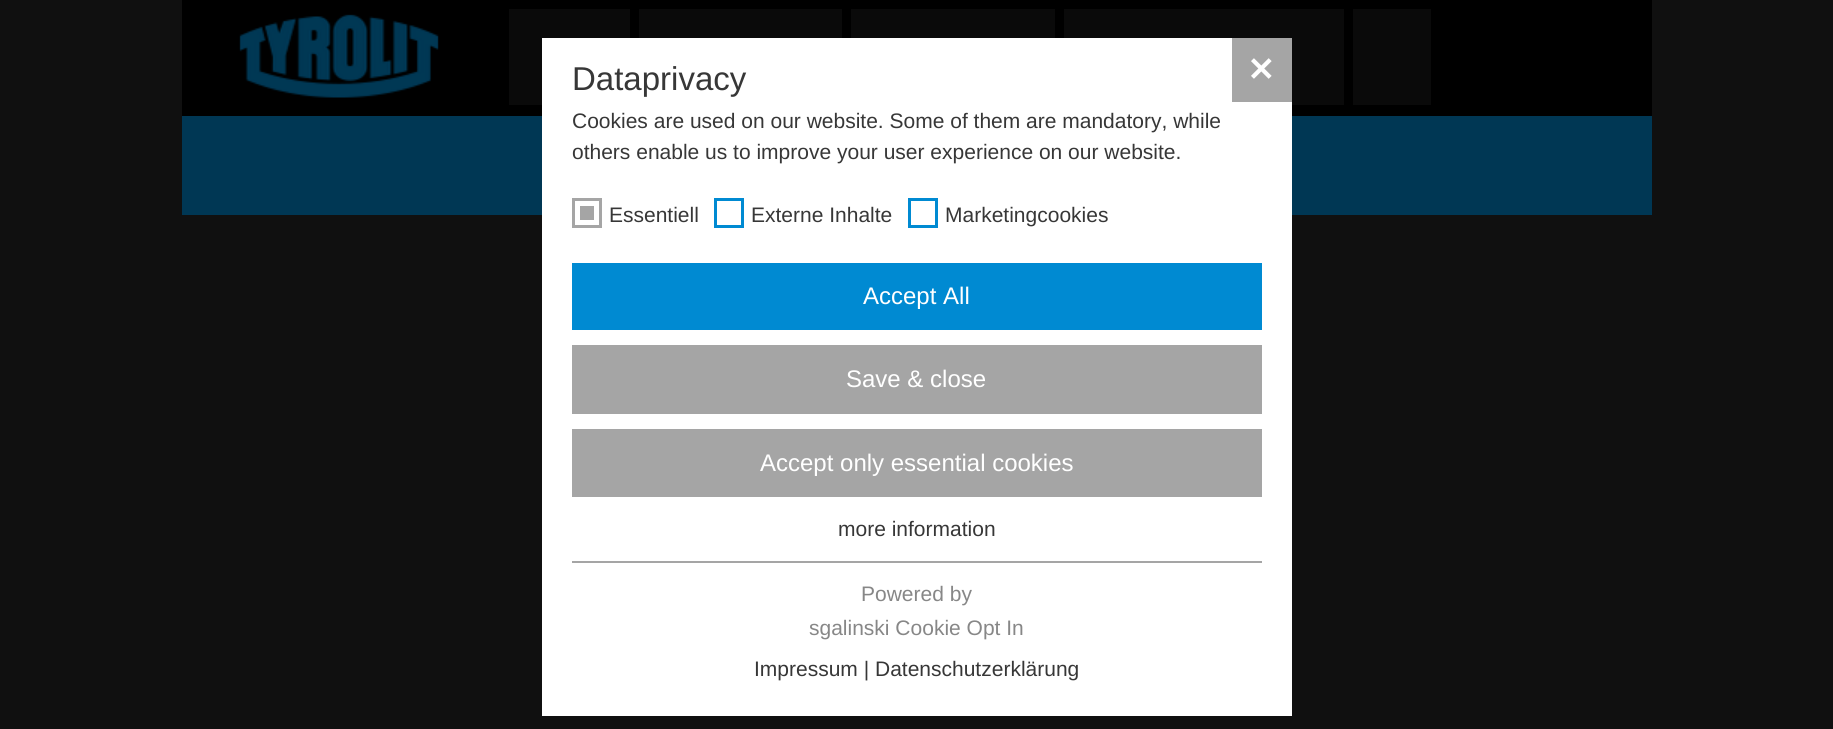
import math
import cairo

surface = cairo.ImageSurface(cairo.FORMAT_RGB24, 1833, 729)
cr = cairo.Context(surface)
options = cairo.FontOptions()
options.set_hint_metrics(cairo.HINT_METRICS_OFF)
options.set_hint_style(cairo.HINT_STYLE_NONE)
cr.set_font_options(options)
cr.set_miter_limit(4)


def rgb(code):
    cr.set_source_rgb(*(v / 255 for v in bytes.fromhex(code[-6:])))


def image(path, x, y, w, h):
    cr.save()
    cr.set_source_surface(cairo.ImageSurface.create_from_png(path), x, y)
    cr.rectangle(x, y, w, h)
    cr.fill()
    cr.restore()


rgb("#101010")
cr.paint()
rgb("#000000")
cr.rectangle(182, 0, 1470, 116)
cr.fill()
image("img/1.png", 239, 14, 200, 84)
for x, y, w, h, color in [
    (509, 9, 121, 96, "#0a0a0a"),
    (639, 9, 203, 29, "#0a0a0a"),
    (851, 9, 204, 29, "#0a0a0a"),
    (1064, 9, 280, 96, "#0a0a0a"),
    (1353, 9, 78, 96, "#0a0a0a"),
    (182, 116, 1470, 99, "#003754"),
    (542, 38, 750, 678, "#ffffff"),
    (1232, 38, 60, 64, "#a5a5a5"),
    (572, 198, 30, 30, "#a5a5a5"),
]:
    rgb(color)
    cr.rectangle(x, y, w, h)
    cr.fill()
cr.rectangle(577.5, 203.5, 19, 19)
rgb("#ffffff")
cr.set_line_width(5)
cr.stroke()
cr.rectangle(715.5, 199.5, 27, 27)
rgb("#008ad2")
cr.set_line_width(3)
cr.stroke()
cr.rectangle(909.5, 199.5, 27, 27)
cr.stroke()
for x, y, w, h, color in [
    (572, 263, 690, 67, "#008ad2"),
    (572, 345, 690, 69, "#a5a5a5"),
    (572, 429, 690, 68, "#a5a5a5"),
    (572, 561, 690, 2, "#a5a5a5"),
]:
    rgb(color)
    cr.rectangle(x, y, w, h)
    cr.fill()
cr.select_font_face("Liberation Sans")
cr.set_font_size(33)
rgb("#373737")
cr.move_to(572, 90)
cr.show_text("Dataprivacy")
cr.select_font_face("DejaVu Sans", cairo.FONT_SLANT_NORMAL, cairo.FONT_WEIGHT_BOLD)
rgb("#ffffff")
cr.move_to(1247, 81)
cr.show_text("✕")
cr.select_font_face("Liberation Sans")
cr.set_font_size(21)
rgb("#373737")
for x, y, s in [
    (572, 128, "Cookies are used on our website. Some of them are mandatory, while"),
    (572, 159, "others enable us to improve your user experience on our website."),
    (609, 222, "Essentiell"),
    (751, 222, "Externe Inhalte"),
    (945, 222, "Marketingcookies"),
]:
    cr.move_to(x, y)
    cr.show_text(s)
cr.set_font_size(24)
rgb("#ffffff")
for x, y, s in [
    (863, 304, "Accept All"),
    (846, 387, "Save & close"),
    (760, 471, "Accept only essential cookies"),
]:
    cr.move_to(x, y)
    cr.show_text(s)
cr.set_font_size(21)
rgb("#373737")
cr.move_to(838, 536)
cr.show_text("more information")
rgb("#878787")
cr.move_to(861, 601)
cr.show_text("Powered by")
cr.move_to(809, 635)
cr.show_text("sgalinski Cookie Opt In")
rgb("#373737")
cr.move_to(754, 676)
cr.show_text("Impressum | Datenschutzerklärung")
surface.write_to_png("page.png")
